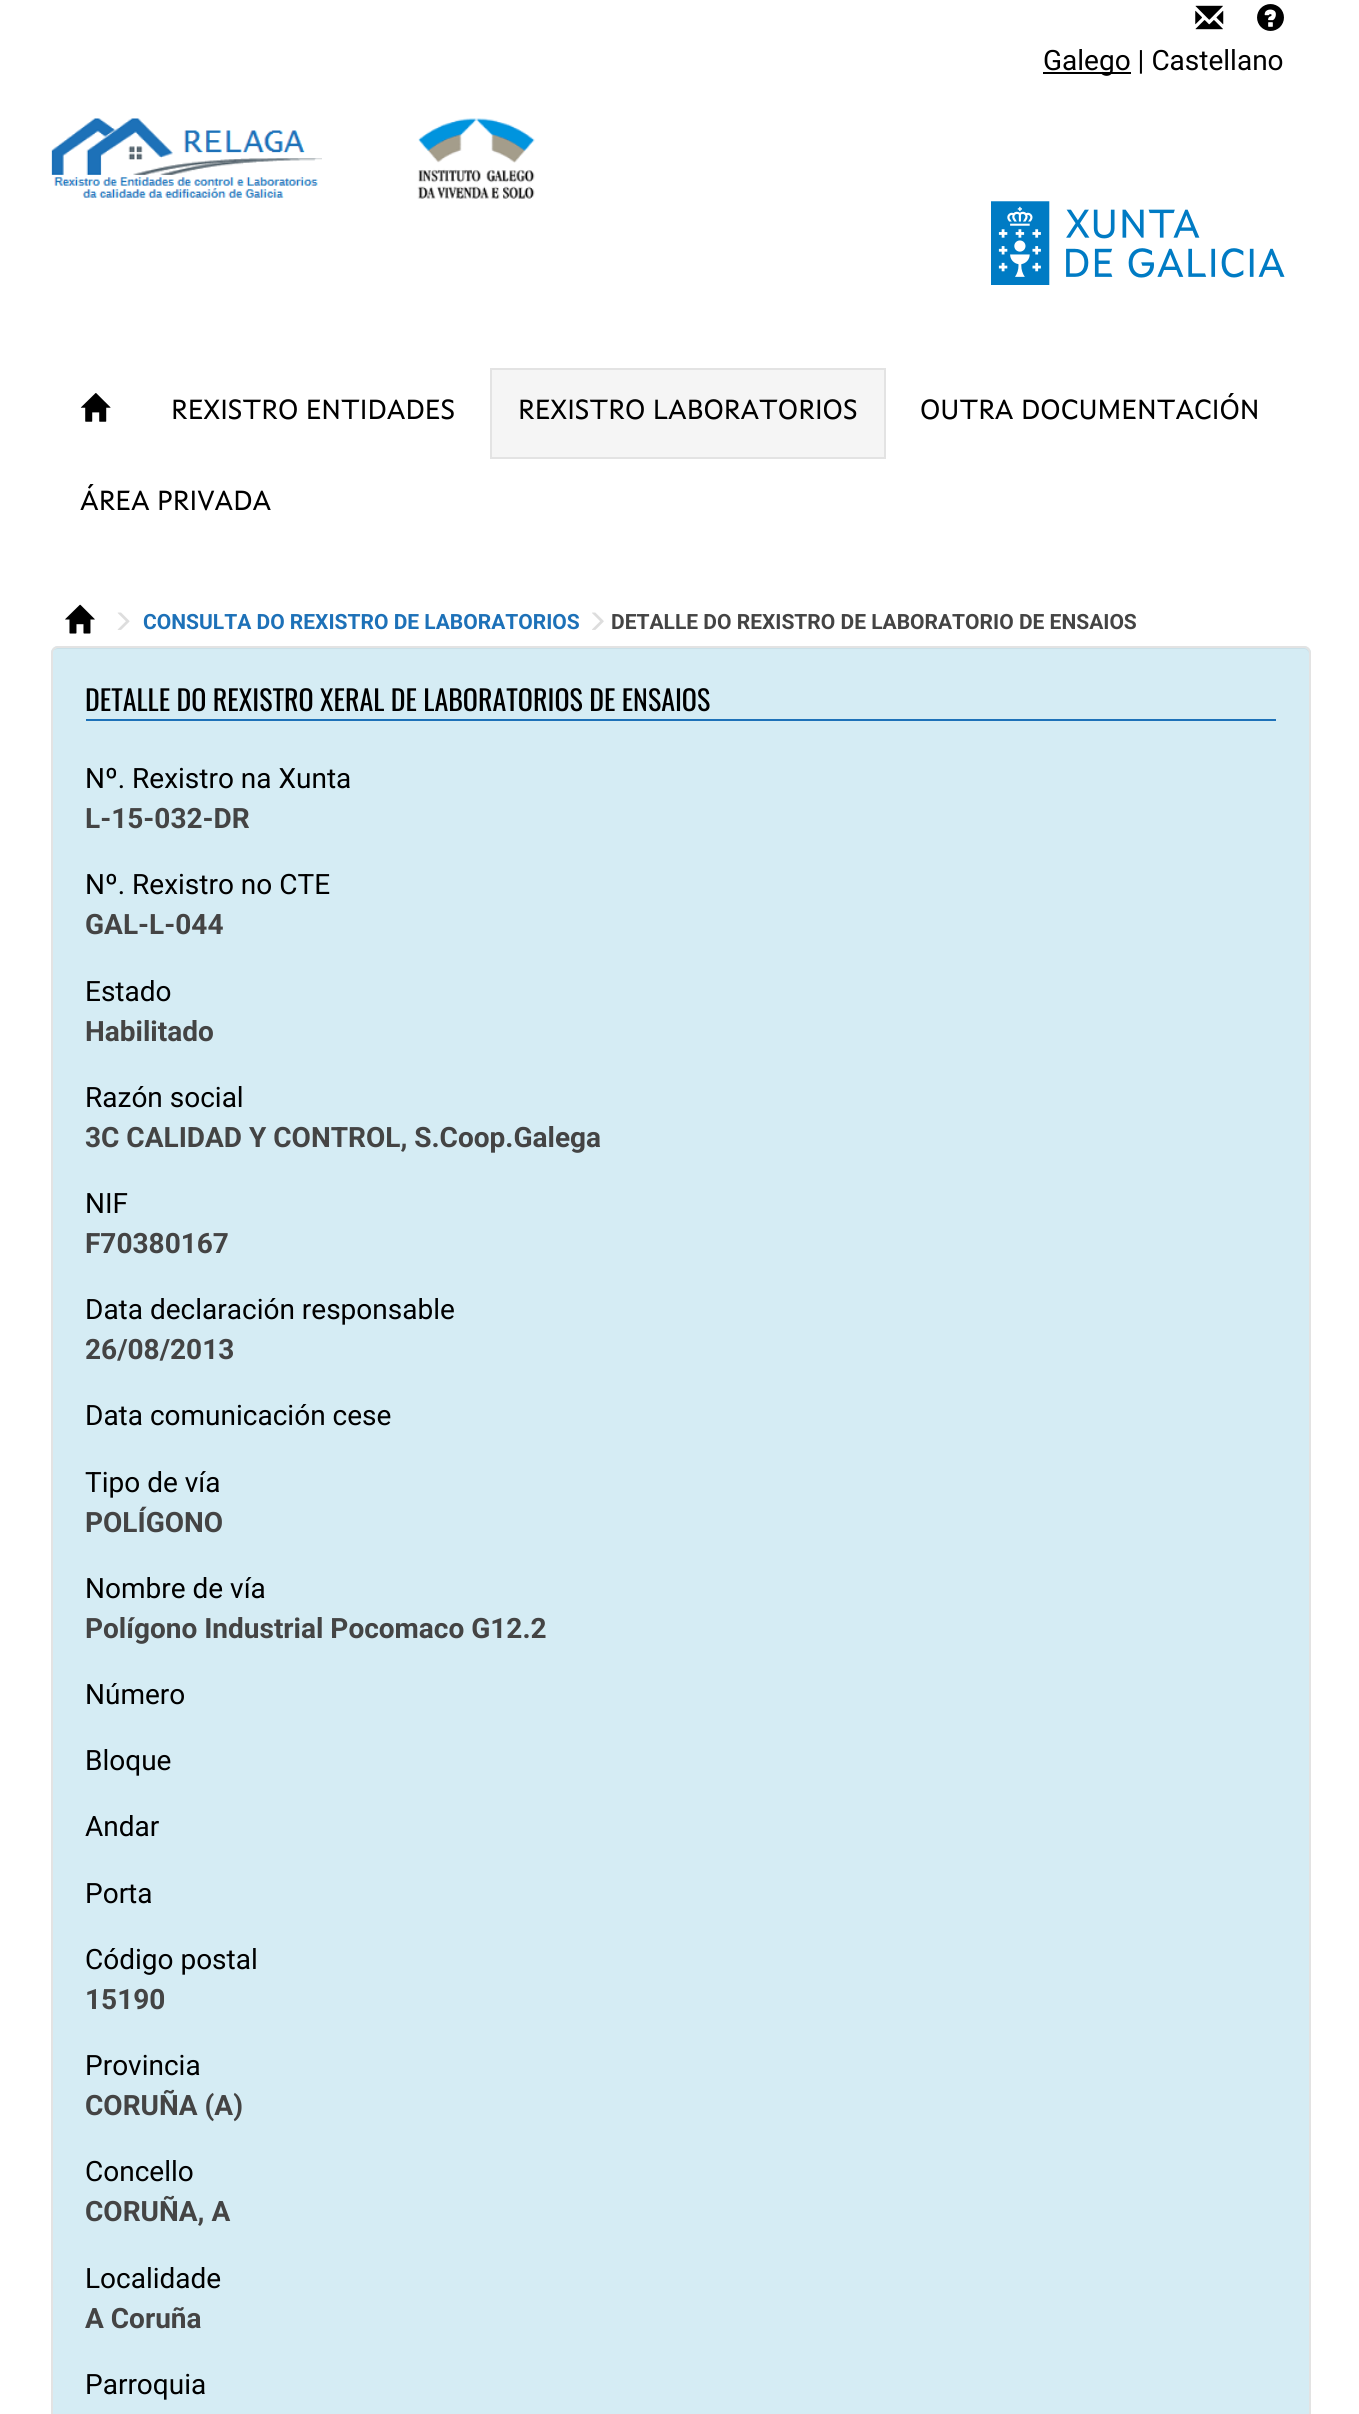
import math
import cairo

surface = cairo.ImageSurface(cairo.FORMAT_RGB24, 1359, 2414)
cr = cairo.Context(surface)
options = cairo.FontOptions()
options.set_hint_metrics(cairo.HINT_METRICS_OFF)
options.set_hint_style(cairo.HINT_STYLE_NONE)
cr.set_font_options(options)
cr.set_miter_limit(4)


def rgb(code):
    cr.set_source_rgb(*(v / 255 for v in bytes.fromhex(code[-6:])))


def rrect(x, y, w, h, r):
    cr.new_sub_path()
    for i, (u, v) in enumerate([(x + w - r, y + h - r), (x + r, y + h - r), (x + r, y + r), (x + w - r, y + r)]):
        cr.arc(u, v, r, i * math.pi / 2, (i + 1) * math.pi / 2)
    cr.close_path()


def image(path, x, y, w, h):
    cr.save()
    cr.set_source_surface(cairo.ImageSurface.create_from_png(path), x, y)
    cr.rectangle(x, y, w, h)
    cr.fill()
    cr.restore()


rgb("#ffffff")
cr.paint()
image("img/1.png", 1195, 5, 29, 25)
image("img/2.png", 1257, 4, 27, 27)
rgb("#000000")
cr.rectangle(1043, 72, 88, 2)
cr.fill()
image("img/3.png", 51, 118, 271, 80)
image("img/4.png", 417, 118, 118, 81)
image("img/5.png", 991, 201, 294, 84)
image("img/6.png", 80, 393, 31, 29)
rgb("#f5f5f5")
cr.rectangle(491, 369, 394, 89)
cr.fill_preserve()
rgb("#e3e3e3")
cr.stroke()
image("img/7.png", 65, 604, 30, 30)
image("img/8.png", 117, 612, 13, 18)
image("img/9.png", 592, 612, 12, 18)
rgb("#d5ecf4")
rrect(51, 646, 1260, 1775, 7)
cr.fill()
rgb("#cae0e8")
cr.new_path()
cr.move_to(58, 649)
cr.line_to(1304, 649)
cr.curve_to(1307, 649, 1309, 652, 1309, 654)
cr.line_to(1309, 653)
cr.curve_to(1309, 650, 1307, 648, 1304, 648)
cr.line_to(58, 648)
cr.curve_to(56, 648, 54, 649, 53, 651)
cr.curve_to(54, 650, 56, 649, 58, 649)
cr.close_path()
cr.fill()
rrect(52, 647, 1258, 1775, 6)
rgb("#e3e3e3")
cr.stroke()
rgb("#1d71b8")
cr.rectangle(86, 719, 1190, 2)
cr.fill()
cr.select_font_face("Roboto")
cr.set_font_size(28)
rgb("#000000")
cr.move_to(1043, 70)
cr.show_text("Galego | Castellano")
cr.select_font_face("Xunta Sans")
for x, y, s in [
    (171, 419, "REXISTRO ENTIDADES"),
    (518, 419, "REXISTRO LABORATORIOS"),
    (920, 419, "OUTRA DOCUMENTACIÓN"),
    (80, 510, "ÁREA PRIVADA"),
]:
    cr.move_to(x, y)
    cr.show_text(s)
cr.select_font_face("Roboto", cairo.FONT_SLANT_NORMAL, cairo.FONT_WEIGHT_BOLD)
cr.set_font_size(21)
rgb("#1d71b8")
cr.move_to(143, 629)
cr.show_text("CONSULTA DO REXISTRO DE LABORATORIOS")
rgb("#444444")
cr.move_to(611, 629)
cr.show_text("DETALLE DO REXISTRO DE LABORATORIO DE ENSAIOS")
cr.select_font_face("Oswald")
cr.set_font_size(28)
rgb("#000000")
cr.move_to(85, 711)
cr.show_text("DETALLE DO REXISTRO XERAL DE LABORATORIOS DE ENSAIOS")
cr.select_font_face("Roboto")
cr.move_to(85, 788)
cr.show_text("Nº. Rexistro na Xunta")
cr.select_font_face("Roboto", cairo.FONT_SLANT_NORMAL, cairo.FONT_WEIGHT_BOLD)
rgb("#444444")
cr.move_to(85, 828)
cr.show_text("L-15-032-DR")
cr.select_font_face("Roboto")
rgb("#000000")
cr.move_to(85, 894)
cr.show_text("Nº. Rexistro no CTE")
cr.select_font_face("Roboto", cairo.FONT_SLANT_NORMAL, cairo.FONT_WEIGHT_BOLD)
rgb("#444444")
cr.move_to(85, 934)
cr.show_text("GAL-L-044")
cr.select_font_face("Roboto")
rgb("#000000")
cr.move_to(85, 1001)
cr.show_text("Estado")
cr.select_font_face("Roboto", cairo.FONT_SLANT_NORMAL, cairo.FONT_WEIGHT_BOLD)
rgb("#444444")
cr.move_to(85, 1041)
cr.show_text("Habilitado")
cr.select_font_face("Roboto")
rgb("#000000")
cr.move_to(85, 1107)
cr.show_text("Razón social")
cr.select_font_face("Roboto", cairo.FONT_SLANT_NORMAL, cairo.FONT_WEIGHT_BOLD)
rgb("#444444")
cr.move_to(85, 1147)
cr.show_text("3C CALIDAD Y CONTROL, S.Coop.Galega")
cr.select_font_face("Roboto")
rgb("#000000")
cr.move_to(85, 1213)
cr.show_text("NIF")
cr.select_font_face("Roboto", cairo.FONT_SLANT_NORMAL, cairo.FONT_WEIGHT_BOLD)
rgb("#444444")
cr.move_to(85, 1253)
cr.show_text("F70380167")
cr.select_font_face("Roboto")
rgb("#000000")
cr.move_to(85, 1319)
cr.show_text("Data declaración responsable")
cr.select_font_face("Roboto", cairo.FONT_SLANT_NORMAL, cairo.FONT_WEIGHT_BOLD)
rgb("#444444")
cr.move_to(85, 1359)
cr.show_text("26/08/2013")
cr.select_font_face("Roboto")
rgb("#000000")
cr.move_to(85, 1425)
cr.show_text("Data comunicación cese")
cr.move_to(85, 1492)
cr.show_text("Tipo de vía")
cr.select_font_face("Roboto", cairo.FONT_SLANT_NORMAL, cairo.FONT_WEIGHT_BOLD)
rgb("#444444")
cr.move_to(85, 1532)
cr.show_text("POLÍGONO")
cr.select_font_face("Roboto")
rgb("#000000")
cr.move_to(85, 1598)
cr.show_text("Nombre de vía")
cr.select_font_face("Roboto", cairo.FONT_SLANT_NORMAL, cairo.FONT_WEIGHT_BOLD)
rgb("#444444")
cr.move_to(85, 1638)
cr.show_text("Polígono Industrial Pocomaco G12.2")
cr.select_font_face("Roboto")
rgb("#000000")
for x, y, s in [
    (85, 1704, "Número"),
    (85, 1770, "Bloque"),
    (85, 1836, "Andar"),
    (85, 1903, "Porta"),
    (85, 1969, "Código postal"),
]:
    cr.move_to(x, y)
    cr.show_text(s)
cr.select_font_face("Roboto", cairo.FONT_SLANT_NORMAL, cairo.FONT_WEIGHT_BOLD)
rgb("#444444")
cr.move_to(85, 2009)
cr.show_text("15190")
cr.select_font_face("Roboto")
rgb("#000000")
cr.move_to(85, 2075)
cr.show_text("Provincia")
cr.select_font_face("Roboto", cairo.FONT_SLANT_NORMAL, cairo.FONT_WEIGHT_BOLD)
rgb("#444444")
cr.move_to(85, 2115)
cr.show_text("CORUÑA (A)")
cr.select_font_face("Roboto")
rgb("#000000")
cr.move_to(85, 2181)
cr.show_text("Concello")
cr.select_font_face("Roboto", cairo.FONT_SLANT_NORMAL, cairo.FONT_WEIGHT_BOLD)
rgb("#444444")
cr.move_to(85, 2221)
cr.show_text("CORUÑA, A")
cr.select_font_face("Roboto")
rgb("#000000")
cr.move_to(85, 2288)
cr.show_text("Localidade")
cr.select_font_face("Roboto", cairo.FONT_SLANT_NORMAL, cairo.FONT_WEIGHT_BOLD)
rgb("#444444")
cr.move_to(85, 2328)
cr.show_text("A Coruña")
cr.select_font_face("Roboto")
rgb("#000000")
cr.move_to(85, 2394)
cr.show_text("Parroquia")
surface.write_to_png("page.png")
